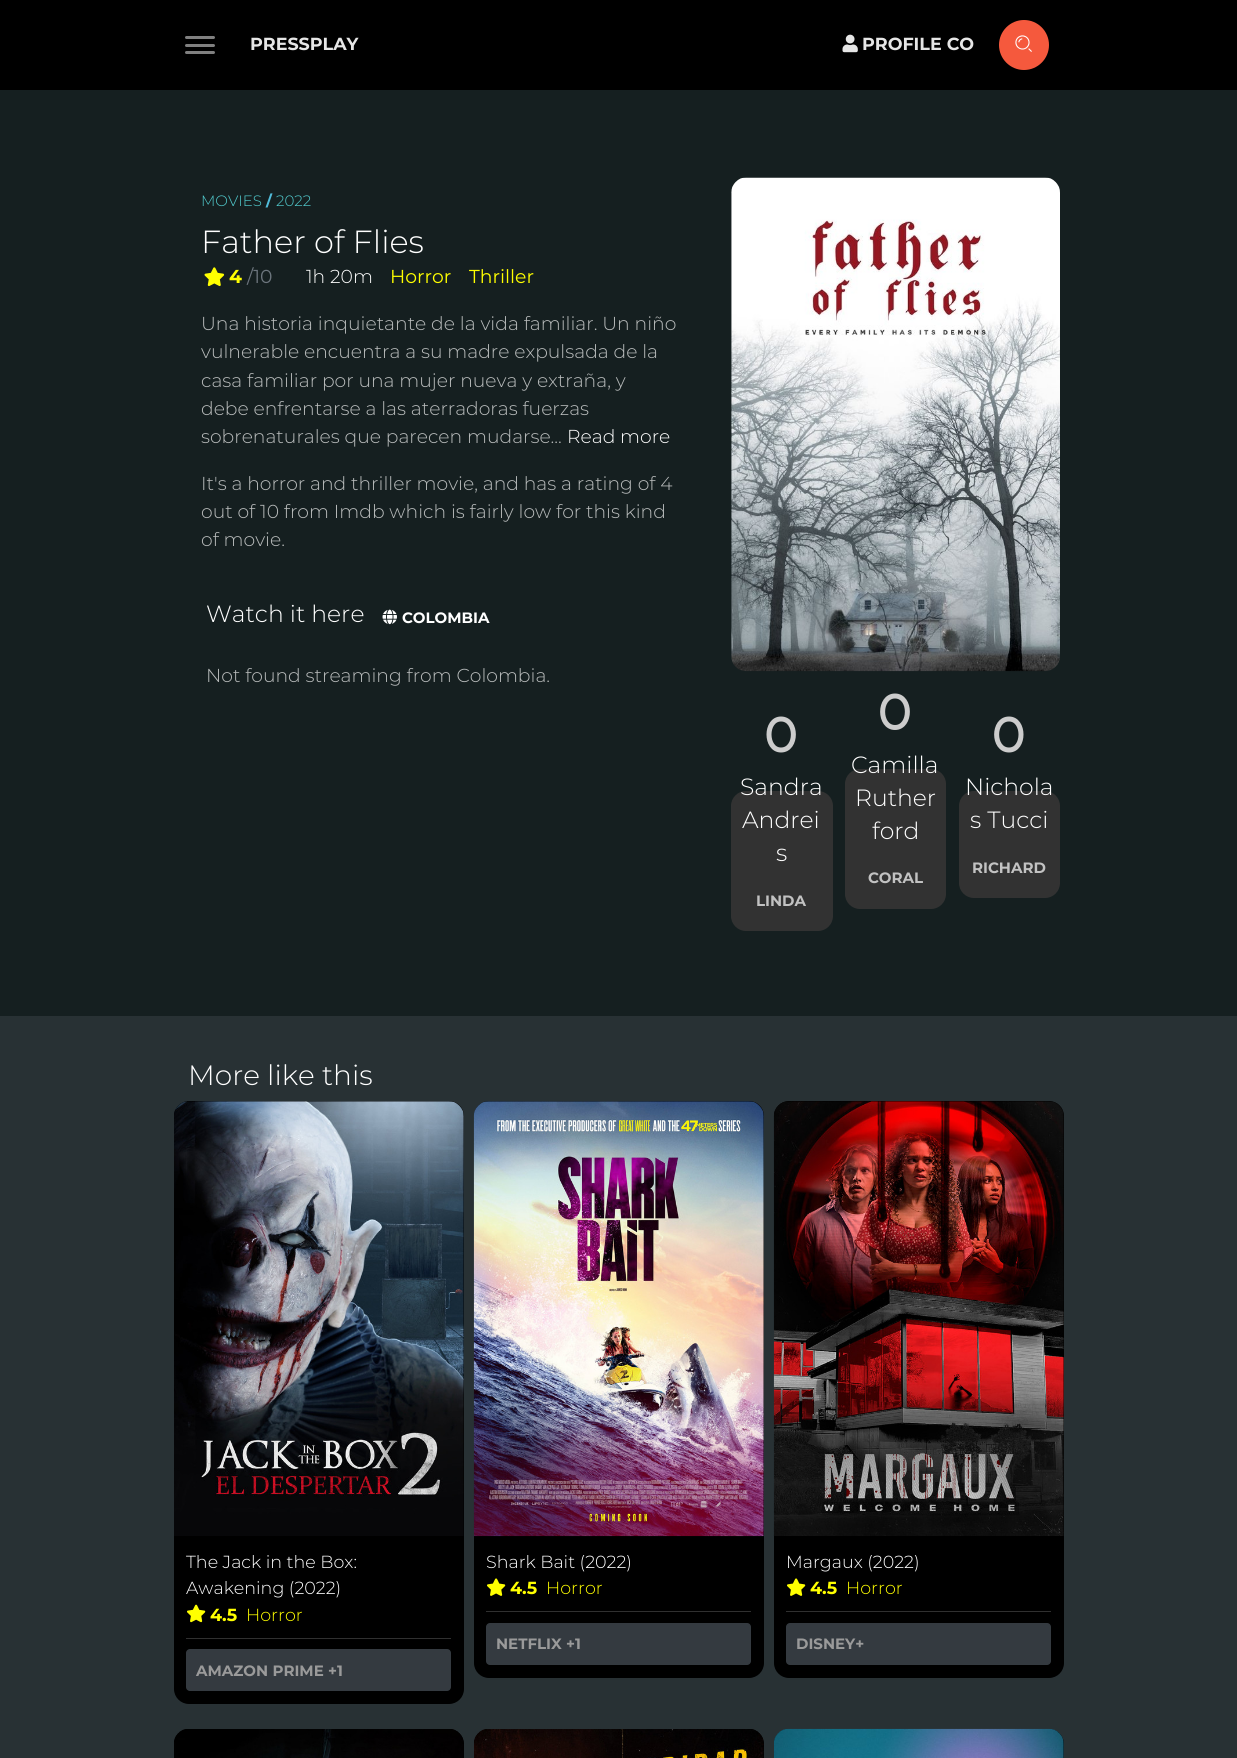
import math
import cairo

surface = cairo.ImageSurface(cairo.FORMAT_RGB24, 1237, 1758)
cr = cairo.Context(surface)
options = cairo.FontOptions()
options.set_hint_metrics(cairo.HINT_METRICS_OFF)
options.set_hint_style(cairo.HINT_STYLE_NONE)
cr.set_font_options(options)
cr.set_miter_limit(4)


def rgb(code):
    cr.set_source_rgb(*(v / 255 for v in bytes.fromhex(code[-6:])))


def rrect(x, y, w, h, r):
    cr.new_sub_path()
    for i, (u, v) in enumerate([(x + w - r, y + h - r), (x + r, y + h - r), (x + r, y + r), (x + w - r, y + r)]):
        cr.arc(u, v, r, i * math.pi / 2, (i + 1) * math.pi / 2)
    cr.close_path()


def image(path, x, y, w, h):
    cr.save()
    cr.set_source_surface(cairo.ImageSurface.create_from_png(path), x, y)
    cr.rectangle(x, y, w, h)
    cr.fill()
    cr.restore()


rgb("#000000")
cr.paint()
rgb("#808080")
rrect(185, 36, 30, 3, 1.5)
cr.fill()
rrect(185, 44, 30, 3, 1.5)
cr.fill()
rrect(185, 51, 30, 3, 1.5)
cr.fill()
image("img/1.png", 842, 34, 16, 19)
rgb("#f5593d")
cr.arc(1024, 45, 23.5, 0, 2 * math.pi)
cr.fill_preserve()
cr.set_line_width(3)
cr.stroke()
image("img/2.png", 1015, 35, 17, 17)
rgb("#151f20")
cr.rectangle(0, 90, 1237, 926)
cr.fill()
image("img/3.png", 204, 267, 21, 20)
image("img/4.png", 382, 609, 15, 16)
image("img/5.png", 731, 177, 329, 495)
rgb("#323232")
rrect(731, 791, 102, 140, 15)
cr.fill()
cr.new_path()
cr.move_to(781, 719)
cr.curve_to(797.5, 719, 797.5, 750, 781, 750)
cr.curve_to(765, 750, 765, 719, 781, 719)
cr.close_path()
rgb("#cccccc")
cr.set_line_width(5)
cr.stroke()
rgb("#323232")
rrect(845, 769, 101, 140, 15)
cr.fill()
cr.new_path()
cr.move_to(895, 696)
cr.curve_to(911.5, 696, 911.5, 727.5, 895, 727.5)
cr.curve_to(878.5, 727.5, 878.5, 696, 895, 696)
cr.close_path()
rgb("#cccccc")
cr.stroke()
rgb("#323232")
rrect(959, 791, 101, 107, 15)
cr.fill()
cr.new_path()
cr.move_to(1009, 719)
cr.curve_to(1025, 719, 1025, 750, 1009, 750)
cr.curve_to(992.5, 750, 992.5, 719, 1009, 719)
cr.close_path()
rgb("#cccccc")
cr.stroke()
rgb("#283134")
cr.rectangle(0, 1016, 1237, 742)
cr.fill()
rgb("#000000")
rrect(174, 1101, 290, 603, 15)
cr.fill()
image("img/6.png", 174, 1101, 290, 435)
image("img/7.png", 187, 1604, 19, 19)
rgb("#303030")
cr.rectangle(186, 1638, 265, 1)
cr.fill()
rgb("#343a40")
rrect(186, 1649, 265, 42, 4)
cr.fill()
rgb("#000000")
rrect(474, 1101, 290, 577, 15)
cr.fill()
image("img/8.png", 473, 1101, 291, 436)
image("img/9.png", 487, 1578, 19, 18)
rgb("#303030")
cr.rectangle(486, 1611, 265, 1)
cr.fill()
rgb("#343a40")
rrect(486, 1623, 265, 42, 4)
cr.fill()
rgb("#000000")
rrect(774, 1101, 290, 577, 15)
cr.fill()
image("img/10.png", 773, 1101, 291, 435)
image("img/9.png", 787, 1578, 19, 18)
rgb("#303030")
cr.rectangle(786, 1611, 265, 1)
cr.fill()
rgb("#343a40")
rrect(786, 1623, 265, 42, 4)
cr.fill()
rgb("#000000")
rrect(174, 1729, 290, 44, 15)
cr.fill()
image("img/11.png", 174, 1729, 290, 29)
rrect(474, 1729, 290, 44, 15)
cr.fill()
image("img/12.png", 474, 1729, 290, 29)
rrect(774, 1729, 290, 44, 15)
cr.fill()
image("img/13.png", 774, 1728, 290, 30)
cr.select_font_face("Montserrat", cairo.FONT_SLANT_NORMAL, cairo.FONT_WEIGHT_BOLD)
cr.set_font_size(17.5)
rgb("#e6e6e6")
cr.move_to(250, 50)
cr.show_text("PRESSPLAY")
cr.move_to(862, 50)
cr.show_text("PROFILE CO")
cr.select_font_face("Montserrat Light")
cr.set_font_size(15)
rgb("#51cbce")
cr.move_to(201, 206)
cr.show_text("MOVIES")
cr.select_font_face("Montserrat", cairo.FONT_SLANT_NORMAL, cairo.FONT_WEIGHT_BOLD)
rgb("#51bcda")
cr.move_to(266, 206)
cr.show_text("/")
cr.select_font_face("Montserrat Light")
rgb("#51cbce")
cr.move_to(276, 206)
cr.show_text("2022")
cr.set_font_size(32)
rgb("#ffffff")
cr.move_to(201, 253)
cr.show_text("Father of Flies")
cr.select_font_face("Montserrat", cairo.FONT_SLANT_NORMAL, cairo.FONT_WEIGHT_BOLD)
cr.set_font_size(18.75)
rgb("#ffff00")
cr.move_to(229, 283)
cr.show_text("4")
cr.select_font_face("Montserrat")
rgb("#6c757d")
cr.move_to(247, 283)
cr.show_text("/10")
cr.select_font_face("Montserrat Light")
rgb("#ffffff")
cr.move_to(306, 283)
cr.show_text("1h 20m")
cr.select_font_face("Montserrat")
rgb("#ffff00")
cr.move_to(390, 283)
cr.show_text("Horror")
cr.move_to(469, 283)
cr.show_text("Thriller")
cr.select_font_face("Montserrat Light")
rgb("#b9bcbc")
for x, y, s in [
    (201, 330, "Una historia inquietante de la vida familiar. Un niño"),
    (201, 358, "vulnerable encuentra a su madre expulsada de la"),
    (201, 387, "casa familiar por una mujer nueva y extraña, y"),
    (201, 415, "debe enfrentarse a las aterradoras fuerzas"),
    (201, 443, "sobrenaturales que parecen mudarse..."),
]:
    cr.move_to(x, y)
    cr.show_text(s)
rgb("#ffffff")
cr.move_to(567, 443)
cr.show_text("Read more")
rgb("#b9bcbc")
for x, y, s in [
    (201, 490, "It's a horror and thriller movie, and has a rating of 4"),
    (201, 518, "out of 10 from Imdb which is fairly low for this kind"),
    (201, 546, "of movie."),
]:
    cr.move_to(x, y)
    cr.show_text(s)
cr.set_font_size(23.5)
rgb("#ffffff")
cr.move_to(206, 622)
cr.show_text("Watch it here")
cr.select_font_face("Montserrat", cairo.FONT_SLANT_NORMAL, cairo.FONT_WEIGHT_BOLD)
cr.set_font_size(15)
cr.move_to(402, 623)
cr.show_text("COLOMBIA")
cr.select_font_face("Montserrat Light")
cr.set_font_size(18.75)
rgb("#b9bcbc")
cr.move_to(206, 682)
cr.show_text("Not found streaming from Colombia.")
cr.set_font_size(23.5)
rgb("#ffffff")
for x, y, s in [
    (740, 795, "Sandra"),
    (742, 828, "Andrei"),
    (776, 861, "s"),
]:
    cr.move_to(x, y)
    cr.show_text(s)
cr.select_font_face("Montserrat", cairo.FONT_SLANT_NORMAL, cairo.FONT_WEIGHT_BOLD)
cr.set_font_size(15)
rgb("#c2c2c2")
cr.move_to(756, 906)
cr.show_text("LINDA")
cr.select_font_face("Montserrat Light")
cr.set_font_size(23.5)
rgb("#ffffff")
for x, y, s in [
    (851, 773, "Camilla"),
    (855, 806, "Ruther"),
    (872, 839, "ford"),
]:
    cr.move_to(x, y)
    cr.show_text(s)
cr.select_font_face("Montserrat", cairo.FONT_SLANT_NORMAL, cairo.FONT_WEIGHT_BOLD)
cr.set_font_size(15)
rgb("#c2c2c2")
cr.move_to(868, 883)
cr.show_text("CORAL")
cr.select_font_face("Montserrat Light")
cr.set_font_size(23.5)
rgb("#ffffff")
cr.move_to(965, 795)
cr.show_text("Nichola")
cr.move_to(970, 828)
cr.show_text("s Tucci")
cr.select_font_face("Montserrat", cairo.FONT_SLANT_NORMAL, cairo.FONT_WEIGHT_BOLD)
cr.set_font_size(15)
rgb("#c2c2c2")
cr.move_to(972, 873)
cr.show_text("RICHARD")
cr.select_font_face("Montserrat Light")
cr.set_font_size(28)
rgb("#ffffff")
cr.move_to(188, 1085)
cr.show_text("More like this")
cr.set_font_size(17.5)
cr.move_to(186, 1568)
cr.show_text("The Jack in the Box:")
cr.move_to(186, 1594)
cr.show_text("Awakening (2022)")
cr.select_font_face("Montserrat", cairo.FONT_SLANT_NORMAL, cairo.FONT_WEIGHT_BOLD)
rgb("#ffff00")
cr.move_to(210, 1621)
cr.show_text("4.5")
cr.select_font_face("Montserrat Light")
cr.move_to(246, 1621)
cr.show_text("Horror")
cr.select_font_face("Montserrat", cairo.FONT_SLANT_NORMAL, cairo.FONT_WEIGHT_BOLD)
cr.set_font_size(15)
rgb("#9a9a9a")
cr.move_to(196, 1676)
cr.show_text("AMAZON PRIME +1")
cr.select_font_face("Montserrat Light")
cr.set_font_size(17.5)
rgb("#ffffff")
cr.move_to(486, 1568)
cr.show_text("Shark Bait (2022)")
cr.select_font_face("Montserrat", cairo.FONT_SLANT_NORMAL, cairo.FONT_WEIGHT_BOLD)
rgb("#ffff00")
cr.move_to(510, 1594)
cr.show_text("4.5")
cr.select_font_face("Montserrat Light")
cr.move_to(546, 1594)
cr.show_text("Horror")
cr.select_font_face("Montserrat", cairo.FONT_SLANT_NORMAL, cairo.FONT_WEIGHT_BOLD)
cr.set_font_size(15)
rgb("#9a9a9a")
cr.move_to(496, 1649)
cr.show_text("NETFLIX +1")
cr.select_font_face("Montserrat Light")
cr.set_font_size(17.5)
rgb("#ffffff")
cr.move_to(786, 1568)
cr.show_text("Margaux (2022)")
cr.select_font_face("Montserrat", cairo.FONT_SLANT_NORMAL, cairo.FONT_WEIGHT_BOLD)
rgb("#ffff00")
cr.move_to(810, 1594)
cr.show_text("4.5")
cr.select_font_face("Montserrat Light")
cr.move_to(846, 1594)
cr.show_text("Horror")
cr.select_font_face("Montserrat", cairo.FONT_SLANT_NORMAL, cairo.FONT_WEIGHT_BOLD)
cr.set_font_size(15)
rgb("#9a9a9a")
cr.move_to(796, 1649)
cr.show_text("DISNEY+")
surface.write_to_png("page.png")
